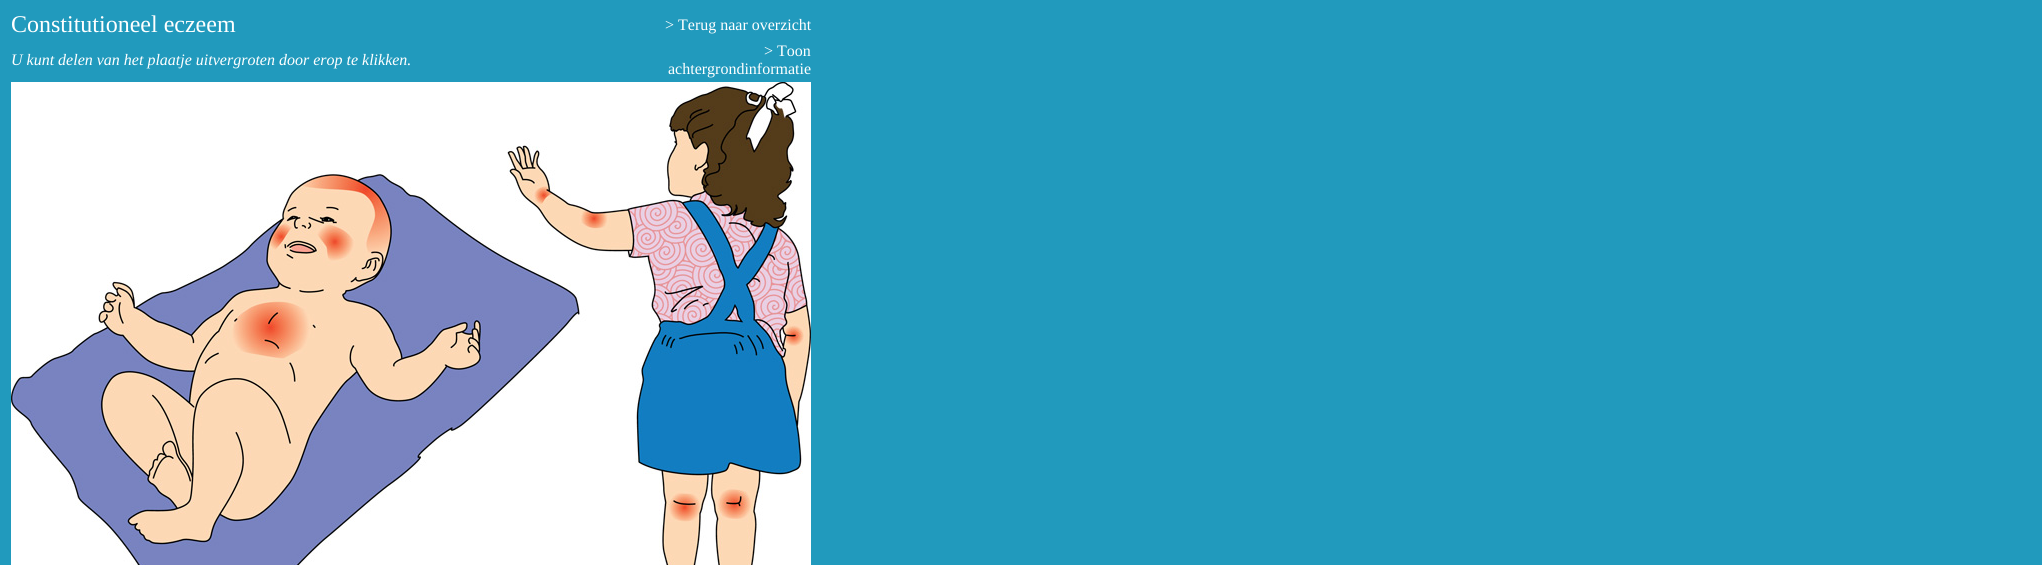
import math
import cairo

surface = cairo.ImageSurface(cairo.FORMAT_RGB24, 2042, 565)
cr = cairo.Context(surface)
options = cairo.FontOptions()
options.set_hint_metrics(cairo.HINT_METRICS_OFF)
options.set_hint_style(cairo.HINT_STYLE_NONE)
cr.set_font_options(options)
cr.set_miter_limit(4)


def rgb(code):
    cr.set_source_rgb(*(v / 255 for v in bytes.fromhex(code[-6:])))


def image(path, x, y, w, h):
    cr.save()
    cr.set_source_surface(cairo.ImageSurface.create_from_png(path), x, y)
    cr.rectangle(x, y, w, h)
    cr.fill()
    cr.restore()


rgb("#219abd")
cr.paint()
image("img/1.png", 11, 82, 800, 483)
cr.select_font_face("Liberation Serif")
cr.set_font_size(24)
rgb("#ffffff")
cr.move_to(11, 32)
cr.show_text("Constitutioneel eczeem")
cr.set_font_size(16)
cr.move_to(665, 30)
cr.show_text("> Terug naar overzicht")
cr.select_font_face("Liberation Serif", cairo.FONT_SLANT_ITALIC)
cr.move_to(11, 65)
cr.show_text("U kunt delen van het plaatje uitvergroten door erop te klikken.")
cr.select_font_face("Liberation Serif")
cr.move_to(764, 56)
cr.show_text("> Toon")
cr.move_to(668, 74)
cr.show_text("achtergrondinformatie")
surface.write_to_png("page.png")
